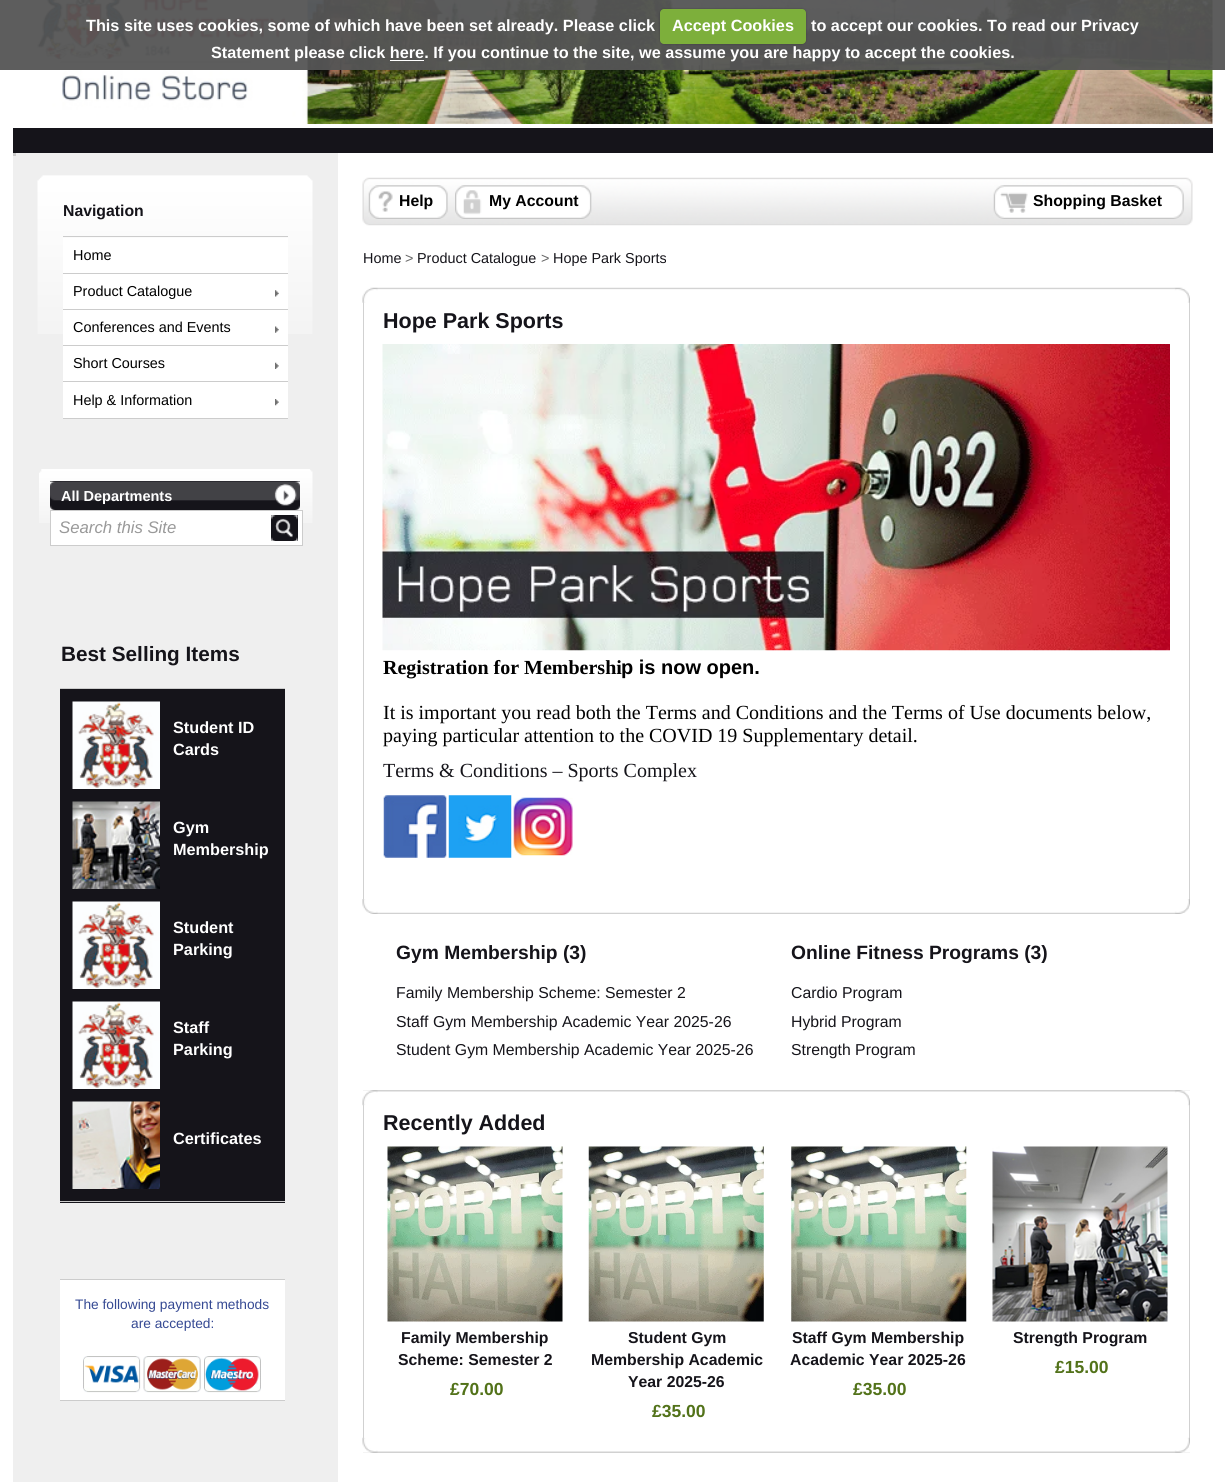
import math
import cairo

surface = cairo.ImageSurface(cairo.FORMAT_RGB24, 1225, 1482)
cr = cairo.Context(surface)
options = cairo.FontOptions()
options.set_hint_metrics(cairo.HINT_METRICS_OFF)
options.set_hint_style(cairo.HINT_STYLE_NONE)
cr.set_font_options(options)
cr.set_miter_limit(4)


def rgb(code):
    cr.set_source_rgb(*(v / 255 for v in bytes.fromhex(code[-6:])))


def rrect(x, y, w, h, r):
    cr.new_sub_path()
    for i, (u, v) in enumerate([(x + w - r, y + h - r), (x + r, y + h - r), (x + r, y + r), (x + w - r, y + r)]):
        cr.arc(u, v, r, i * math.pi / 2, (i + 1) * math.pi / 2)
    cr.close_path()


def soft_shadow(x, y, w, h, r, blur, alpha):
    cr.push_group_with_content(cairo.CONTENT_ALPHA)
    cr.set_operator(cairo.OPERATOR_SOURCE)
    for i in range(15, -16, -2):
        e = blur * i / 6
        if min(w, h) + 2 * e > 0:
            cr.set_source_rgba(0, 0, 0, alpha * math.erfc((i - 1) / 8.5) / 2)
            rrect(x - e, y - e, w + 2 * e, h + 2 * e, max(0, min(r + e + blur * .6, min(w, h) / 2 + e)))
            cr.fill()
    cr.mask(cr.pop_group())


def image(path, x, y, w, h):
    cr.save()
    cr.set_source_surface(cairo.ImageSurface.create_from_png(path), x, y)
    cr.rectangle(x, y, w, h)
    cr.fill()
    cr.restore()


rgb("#ffffff")
cr.paint()
image("img/1.png", 21, 0, 1192, 124)
cr.set_source_rgba(0.337, 0.337, 0.337, 0.95)
cr.rectangle(0, 0, 1225, 70)
cr.fill()
rgb("#000000")
soft_shadow(660, 9, 146, 35, 4, 1, 0.25)
rgb("#7daf3b")
rrect(660, 9, 146, 35, 4)
cr.fill()
rgb("#ffffff")
cr.rectangle(390, 60, 34, 1)
cr.fill()
rgb("#15141a")
cr.rectangle(13, 128, 1200, 25)
cr.fill()
image("img/2.png", 362, 177, 831, 49)
image("img/3.png", 368, 185, 80, 34)
image("img/4.png", 455, 185, 137, 34)
image("img/5.png", 993, 185, 191, 34)
cr.rectangle(363.5, 288.5, 826, 625)
rgb("#d1d1d1")
cr.set_line_width(1)
cr.stroke()
image("img/6.png", 362, 287, 828, 16)
image("img/7.png", 382, 344, 788, 307)
for x, y, w, h, color in [
    (13, 153, 325, 1329, "#efefef"),
    (60, 689, 225, 514, "#15141a"),
    (60, 688, 225, 1, "#cccccc"),
    (60, 1201, 225, 1, "#cccccc"),
]:
    rgb(color)
    cr.rectangle(x, y, w, h)
    cr.fill()
image("img/8.png", 72, 701, 88, 88)
image("img/9.png", 72, 801, 88, 88)
image("img/8.png", 72, 901, 88, 88)
image("img/8.png", 72, 1001, 88, 88)
image("img/10.png", 72, 1101, 88, 88)
image("img/11.png", 383, 795, 64, 63)
image("img/12.png", 448, 795, 64, 63)
image("img/13.png", 513, 797, 60, 59)
for x, y, w, h, color in [
    (60, 1280, 225, 120, "#ffffff"),
    (60, 1279, 225, 1, "#cccccc"),
    (60, 1400, 225, 1, "#cccccc"),
]:
    rgb(color)
    cr.rectangle(x, y, w, h)
    cr.fill()
image("img/14.png", 83, 1356, 178, 37)
image("img/15.png", 362, 899, 828, 15)
cr.rectangle(363.5, 1090.5, 826, 362)
rgb("#d1d1d1")
cr.stroke()
image("img/16.png", 362, 1090, 828, 16)
image("img/17.png", 387, 1146, 176, 176)
image("img/18.png", 588, 1146, 176, 176)
image("img/19.png", 791, 1146, 176, 176)
image("img/20.png", 992, 1146, 176, 176)
image("img/21.png", 362, 1437, 828, 16)
rgb("#cccccc")
cr.rectangle(13, 153, 3, 3)
cr.fill()
image("img/22.png", 37, 175, 276, 159)
for x, y, w, h, color in [
    (63, 236, 225, 1, "#cccccc"),
    (63, 238, 225, 35, "#ffffff"),
    (63, 273, 225, 1, "#cccccc"),
    (63, 274, 225, 35, "#ffffff"),
    (63, 309, 225, 1, "#cccccc"),
]:
    rgb(color)
    cr.rectangle(x, y, w, h)
    cr.fill()
image("img/23.png", 275, 290, 4, 7)
rgb("#ffffff")
cr.rectangle(63, 310, 225, 35)
cr.fill()
rgb("#cccccc")
cr.rectangle(63, 345, 225, 1)
cr.fill()
image("img/24.png", 275, 326, 4, 7)
rgb("#ffffff")
cr.rectangle(63, 346, 225, 72)
cr.fill()
rgb("#cccccc")
cr.rectangle(63, 381, 225, 1)
cr.fill()
image("img/25.png", 275, 362, 4, 7)
cr.rectangle(63, 418, 225, 1)
cr.fill()
image("img/26.png", 275, 399, 4, 7)
image("img/27.png", 39, 469, 274, 54)
rgb("#15141a")
cr.rectangle(50, 481, 250, 29)
cr.fill()
image("img/28.png", 50, 481, 250, 29)
image("img/29.png", 61, 481, 239, 29)
rgb("#ffffff")
cr.rectangle(50.5, 510.5, 252, 35)
cr.fill_preserve()
rgb("#cccccc")
cr.stroke()
rgb("#15141a")
cr.rectangle(271, 515, 27, 26)
cr.fill()
image("img/30.png", 271, 515, 27, 26)
cr.select_font_face("Liberation Sans", cairo.FONT_SLANT_NORMAL, cairo.FONT_WEIGHT_BOLD)
cr.set_font_size(16.25)
rgb("#ffffff")
for x, y, s in [
    (86, 31, "This site uses cookies, some of which have been set already. Please click"),
    (672, 31, "Accept Cookies"),
    (811, 31, "to accept our cookies. To read our Privacy"),
    (211, 58, "Statement please click here. If you continue to the site, we assume you are happy to accept the cookies."),
]:
    cr.move_to(x, y)
    cr.show_text(s)
cr.set_font_size(15.8)
rgb("#000000")
for x, y, s in [
    (399, 206, "Help"),
    (489, 206, "My Account"),
    (1033, 206, "Shopping Basket"),
]:
    cr.move_to(x, y)
    cr.show_text(s)
cr.select_font_face("Liberation Sans")
cr.set_font_size(14.4)
rgb("#15141a")
cr.move_to(363, 263)
cr.show_text("Home")
rgb("#666666")
cr.move_to(405, 263)
cr.show_text(">")
rgb("#15141a")
cr.move_to(417, 263)
cr.show_text("Product Catalogue")
rgb("#666666")
cr.move_to(541, 263)
cr.show_text(">")
rgb("#15141a")
cr.move_to(553, 263)
cr.show_text("Hope Park Sports")
cr.select_font_face("Liberation Sans", cairo.FONT_SLANT_NORMAL, cairo.FONT_WEIGHT_BOLD)
cr.set_font_size(21.5)
cr.move_to(383, 328)
cr.show_text("Hope Park Sports")
cr.set_font_size(20.75)
cr.move_to(61, 661)
cr.show_text("Best Selling Items")
cr.set_font_size(16.25)
rgb("#ffffff")
for x, y, s in [
    (173, 733, "Student ID"),
    (173, 755, "Cards"),
    (173, 833, "Gym"),
    (173, 855, "Membership"),
    (173, 933, "Student"),
    (173, 955, "Parking"),
    (173, 1033, "Staff"),
    (173, 1055, "Parking"),
    (173, 1144, "Certificates"),
]:
    cr.move_to(x, y)
    cr.show_text(s)
cr.select_font_face("Liberation Serif", cairo.FONT_SLANT_NORMAL, cairo.FONT_WEIGHT_BOLD)
cr.set_font_size(20)
rgb("#000000")
cr.move_to(383, 674)
cr.show_text("Registration for Membershi")
cr.select_font_face("Liberation Sans", cairo.FONT_SLANT_NORMAL, cairo.FONT_WEIGHT_BOLD)
cr.move_to(621, 674)
cr.show_text("p is now open.")
cr.select_font_face("Liberation Serif")
cr.move_to(383, 719)
cr.show_text("It is important you read both the Terms and Conditions and the Terms of Use documents below,")
cr.move_to(383, 742)
cr.show_text("paying particular attention to the COVID 19 Supplementary detail.")
rgb("#15141a")
cr.move_to(383, 777)
cr.show_text("Terms & Conditions – Sports Complex")
cr.select_font_face("Liberation Sans")
cr.set_font_size(13.75)
rgb("#354993")
cr.move_to(75, 1309)
cr.show_text("The following payment methods")
cr.move_to(131, 1328)
cr.show_text("are accepted:")
cr.select_font_face("Liberation Sans", cairo.FONT_SLANT_NORMAL, cairo.FONT_WEIGHT_BOLD)
cr.set_font_size(19.25)
rgb("#15141a")
cr.move_to(396, 959)
cr.show_text("Gym Membership (3)")
cr.select_font_face("Liberation Sans")
cr.set_font_size(15.8)
for x, y, s in [
    (396, 998, "Family Membership Scheme: Semester 2"),
    (396, 1027, "Staff Gym Membership Academic Year 2025-26"),
    (396, 1055, "Student Gym Membership Academic Year 2025-26"),
]:
    cr.move_to(x, y)
    cr.show_text(s)
cr.select_font_face("Liberation Sans", cairo.FONT_SLANT_NORMAL, cairo.FONT_WEIGHT_BOLD)
cr.set_font_size(19.25)
cr.move_to(791, 959)
cr.show_text("Online Fitness Programs (3)")
cr.select_font_face("Liberation Sans")
cr.set_font_size(15.8)
for x, y, s in [
    (791, 998, "Cardio Program"),
    (791, 1027, "Hybrid Program"),
    (791, 1055, "Strength Program"),
]:
    cr.move_to(x, y)
    cr.show_text(s)
cr.select_font_face("Liberation Sans", cairo.FONT_SLANT_NORMAL, cairo.FONT_WEIGHT_BOLD)
cr.set_font_size(21.5)
cr.move_to(383, 1130)
cr.show_text("Recently Added")
cr.set_font_size(15.8)
cr.move_to(401, 1343)
cr.show_text("Family Membership")
cr.move_to(398, 1365)
cr.show_text("Scheme: Semester 2")
cr.set_font_size(17.5)
rgb("#527219")
cr.move_to(450, 1395)
cr.show_text("£70.00")
cr.set_font_size(15.8)
rgb("#15141a")
for x, y, s in [
    (628, 1343, "Student Gym"),
    (591, 1365, "Membership Academic"),
    (628, 1387, "Year 2025-26"),
]:
    cr.move_to(x, y)
    cr.show_text(s)
cr.set_font_size(17.5)
rgb("#527219")
cr.move_to(652, 1417)
cr.show_text("£35.00")
cr.set_font_size(15.8)
rgb("#15141a")
cr.move_to(792, 1343)
cr.show_text("Staff Gym Membership")
cr.move_to(790, 1365)
cr.show_text("Academic Year 2025-26")
cr.set_font_size(17.5)
rgb("#527219")
cr.move_to(853, 1395)
cr.show_text("£35.00")
cr.set_font_size(15.8)
rgb("#15141a")
cr.move_to(1013, 1343)
cr.show_text("Strength Program")
cr.set_font_size(17.5)
rgb("#527219")
cr.move_to(1055, 1373)
cr.show_text("£15.00")
cr.set_font_size(15.8)
rgb("#15141a")
cr.move_to(63, 216)
cr.show_text("Navigation")
cr.select_font_face("Liberation Sans")
cr.set_font_size(14.4)
rgb("#000000")
for x, y, s in [
    (73, 260, "Home"),
    (73, 296, "Product Catalogue"),
    (73, 332, "Conferences and Events"),
    (73, 368, "Short Courses"),
    (73, 405, "Help & Information"),
]:
    cr.move_to(x, y)
    cr.show_text(s)
cr.select_font_face("Liberation Sans", cairo.FONT_SLANT_NORMAL, cairo.FONT_WEIGHT_BOLD)
cr.set_font_size(14.5)
rgb("#ffffff")
cr.move_to(61, 501)
cr.show_text("All Departments")
cr.select_font_face("Liberation Sans", cairo.FONT_SLANT_ITALIC)
cr.set_font_size(16.75)
rgb("#999999")
cr.move_to(59, 533)
cr.show_text("Search this Site")
surface.write_to_png("page.png")
